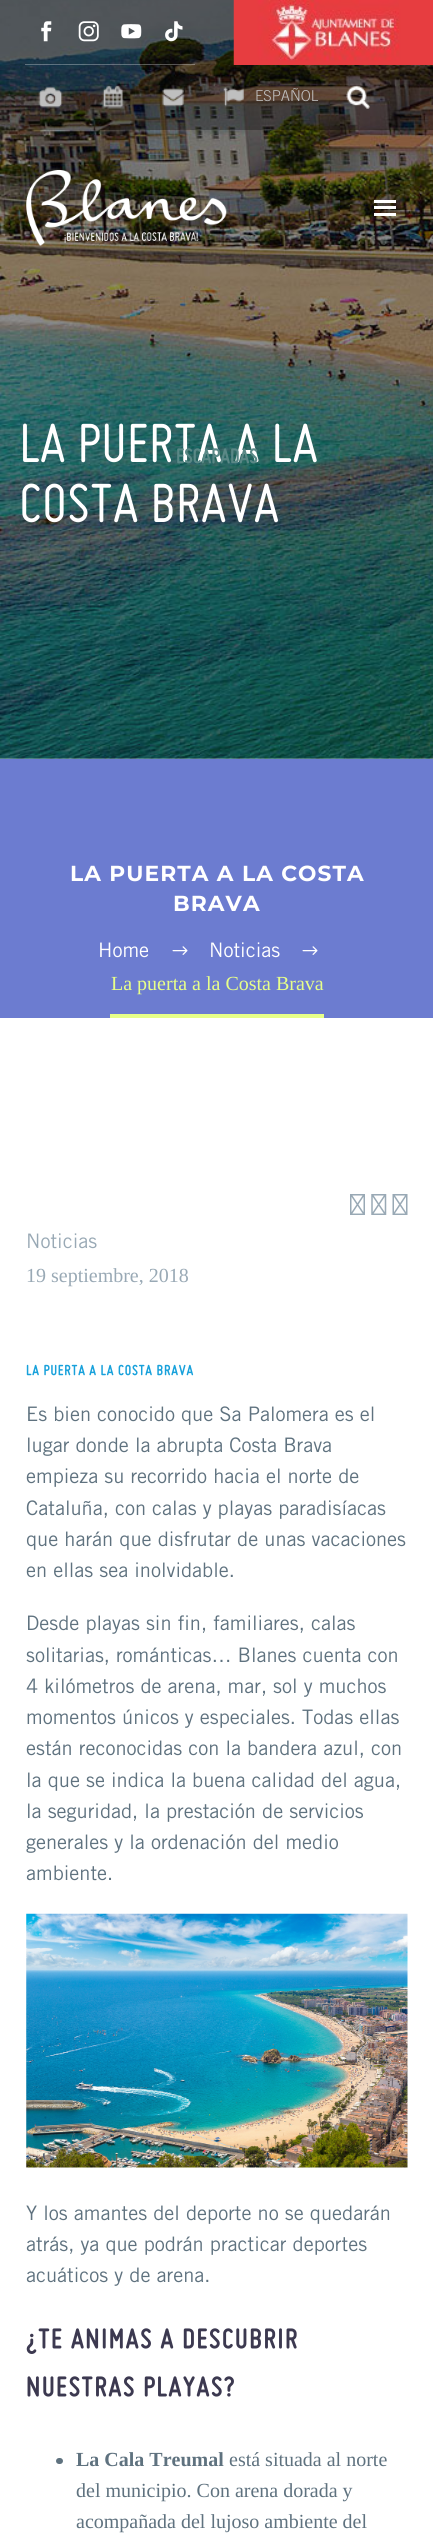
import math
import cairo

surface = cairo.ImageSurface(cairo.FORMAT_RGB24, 433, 2534)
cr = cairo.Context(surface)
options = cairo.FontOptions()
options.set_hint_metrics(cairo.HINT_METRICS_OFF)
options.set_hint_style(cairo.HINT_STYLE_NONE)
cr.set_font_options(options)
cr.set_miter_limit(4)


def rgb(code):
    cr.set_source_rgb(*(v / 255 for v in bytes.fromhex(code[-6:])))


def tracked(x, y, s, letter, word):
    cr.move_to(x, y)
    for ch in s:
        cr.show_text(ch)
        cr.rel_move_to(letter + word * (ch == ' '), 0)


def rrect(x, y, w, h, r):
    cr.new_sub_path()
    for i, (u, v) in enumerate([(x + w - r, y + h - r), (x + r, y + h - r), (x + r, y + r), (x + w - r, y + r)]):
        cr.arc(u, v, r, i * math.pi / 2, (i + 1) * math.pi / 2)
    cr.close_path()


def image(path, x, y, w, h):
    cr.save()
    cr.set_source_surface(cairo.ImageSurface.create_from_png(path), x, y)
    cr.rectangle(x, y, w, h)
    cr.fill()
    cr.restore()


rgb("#ffffff")
cr.paint()
image("img/11.png", 0, 0, 433, 759)
cr.set_source_rgba(0, 0, 0, 0.3)
cr.rectangle(0, 0, 433, 130)
cr.fill()
cr.set_source_rgba(1, 1, 1, 0.3)
cr.rectangle(25, 64, 170, 1)
cr.fill()
image("img/1.png", 41, 21, 11, 21)
image("img/2.png", 78, 21, 21, 21)
image("img/3.png", 121, 24, 21, 15)
image("img/4.png", 165, 21, 18, 21)
image("img/5.png", 233, 0, 200, 65)
image("img/6.png", 38, 87, 25, 21)
image("img/7.png", 102, 86, 21, 22)
image("img/8.png", 162, 88, 22, 19)
image("img/9.png", 223, 87, 21, 20)
image("img/10.png", 346, 85, 24, 24)
rgb("#6c7cd0")
cr.rectangle(0, 759, 433, 259)
cr.fill()
image("img/12.png", 172, 946, 16, 9)
image("img/12.png", 302, 946, 16, 9)
rgb("#e7ff89")
cr.rectangle(110, 1014, 214, 4)
cr.fill()
image("img/13.png", 350, 1194, 15, 21)
image("img/14.png", 371, 1194, 16, 21)
image("img/15.png", 392, 1194, 16, 21)
image("img/16.png", 26, 1913, 382, 255)
rgb("#5f727f")
rrect(56, 2458, 7, 6, 3)
cr.fill()
image("img/17.png", 26, 170, 201, 76)
for x, y, w, h, color in [
    (374, 200, 22, 3, "#ffffff"),
    (374, 206, 22, 3, "#ffffff"),
    (374, 213, 22, 3, "#ffffff"),
]:
    rgb(color)
    cr.rectangle(x, y, w, h)
    cr.fill()
cr.select_font_face("Trade Gothic Light")
cr.set_font_size(15)
rgb("#c0c0c0")
cr.move_to(255, 101)
cr.show_text("ESPAÑOL")
cr.select_font_face("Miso")
cr.set_font_size(60)
rgb("#ffffff")
cr.move_to(19, 462)
cr.show_text("LA PUERTA A LA")
cr.move_to(19, 522)
cr.show_text("COSTA BRAVA")
cr.select_font_face("Montserrat", cairo.FONT_SLANT_NORMAL, cairo.FONT_WEIGHT_BOLD)
cr.set_font_size(21.75)
tracked(70, 881, "LA PUERTA A LA COSTA", 1.1, 0)
tracked(173, 911, "BRAVA", 1.1, 0)
cr.select_font_face("Trade Gothic")
cr.set_font_size(20)
cr.move_to(98, 957)
cr.show_text("Home")
cr.move_to(209, 957)
cr.show_text("Noticias")
cr.select_font_face("Liberation Serif")
rgb("#e7ff89")
cr.move_to(111, 990)
cr.show_text("La puerta a la Costa Brava")
cr.select_font_face("Trade Gothic")
rgb("#99a9b5")
cr.move_to(26, 1248)
cr.show_text("Noticias")
cr.select_font_face("Liberation Serif")
cr.move_to(26, 1282)
cr.show_text("19 septiembre, 2018")
cr.select_font_face("Miso", cairo.FONT_SLANT_NORMAL, cairo.FONT_WEIGHT_BOLD)
cr.set_font_size(15.6)
rgb("#18a1db")
tracked(26, 1375, "LA PUERTA A LA COSTA BRAVA", 0.75, 0)
cr.select_font_face("Trade Gothic")
cr.set_font_size(20)
rgb("#5f727f")
for x, y, s in [
    (26, 1421, "Es bien conocido que Sa Palomera es el"),
    (26, 1452, "lugar donde la abrupta Costa Brava"),
    (26, 1483, "empieza su recorrido hacia el norte de"),
    (26, 1515, "Cataluña, con calas y playas paradisíacas"),
    (26, 1546, "que harán que disfrutar de unas vacaciones"),
    (26, 1577, "en ellas sea inolvidable."),
    (26, 1630, "Desde playas sin fin, familiares, calas"),
    (26, 1662, "solitarias, románticas… Blanes cuenta con"),
    (26, 1693, "4 kilómetros de arena, mar, sol y muchos"),
    (26, 1724, "momentos únicos y especiales. Todas ellas"),
    (26, 1755, "están reconocidas con la bandera azul, con"),
    (26, 1787, "la que se indica la buena calidad del agua,"),
    (26, 1818, "la seguridad, la prestación de servicios"),
    (26, 1849, "generales y la ordenación del medio"),
    (26, 1880, "ambiente."),
    (26, 2220, "Y los amantes del deporte no se quedarán"),
    (26, 2251, "atrás, ya que podrán practicar deportes"),
    (26, 2282, "acuáticos y de arena."),
]:
    cr.move_to(x, y)
    cr.show_text(s)
cr.select_font_face("Miso", cairo.FONT_SLANT_NORMAL, cairo.FONT_WEIGHT_BOLD)
cr.set_font_size(30)
rgb("#3c3950")
tracked(26, 2348, "¿TE ANIMAS A DESCUBRIR", 1.5, 0)
tracked(26, 2396, "NUESTRAS PLAYAS?", 1.5, 0)
cr.select_font_face("Liberation Serif", cairo.FONT_SLANT_NORMAL, cairo.FONT_WEIGHT_BOLD)
cr.set_font_size(20)
rgb("#5f727f")
cr.move_to(76, 2466)
cr.show_text("La Cala Treumal")
cr.select_font_face("Liberation Serif")
for x, y, s in [
    (229, 2466, "está situada al norte"),
    (76, 2497, "del municipio. Con arena dorada y"),
    (76, 2528, "acompañada del lujoso ambiente del"),
]:
    cr.move_to(x, y)
    cr.show_text(s)
cr.select_font_face("Miso", cairo.FONT_SLANT_NORMAL, cairo.FONT_WEIGHT_BOLD)
cr.set_font_size(22.5)
rgb("#5a8886")
cr.move_to(176, 463)
cr.show_text("ESCAPADAS")
surface.write_to_png("page.png")
